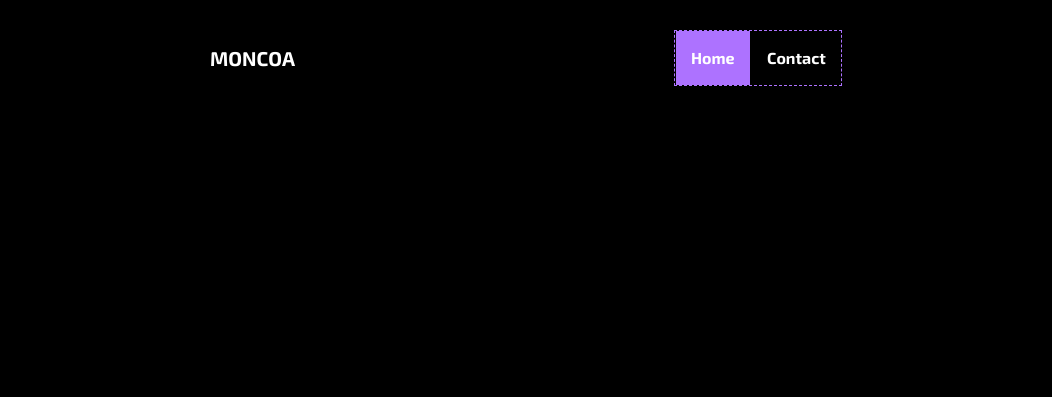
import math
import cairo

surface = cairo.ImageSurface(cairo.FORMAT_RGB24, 1052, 397)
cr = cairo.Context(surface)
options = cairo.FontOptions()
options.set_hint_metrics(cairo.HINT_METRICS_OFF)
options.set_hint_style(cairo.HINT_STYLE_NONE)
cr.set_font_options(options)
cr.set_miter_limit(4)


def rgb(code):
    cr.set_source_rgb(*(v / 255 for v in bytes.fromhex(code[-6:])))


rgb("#000000")
cr.paint()
cr.new_path()
cr.move_to(674, 30.5)
cr.line_to(842, 30.5)
rgb("#ad72ff")
cr.set_line_width(1)
cr.set_dash([3, 2])
cr.stroke()
cr.new_path()
cr.move_to(841.5, 30)
cr.line_to(841.5, 86)
cr.set_dash([3, 1.82])
cr.stroke()
cr.new_path()
cr.move_to(674, 85.5)
cr.line_to(842, 85.5)
cr.set_dash([3, 2])
cr.stroke()
cr.new_path()
cr.move_to(674.5, 30)
cr.line_to(674.5, 86)
cr.set_dash([3, 1.82])
cr.stroke()
cr.rectangle(676, 31, 74, 54)
cr.fill()
cr.select_font_face("Exo 2", cairo.FONT_SLANT_NORMAL, cairo.FONT_WEIGHT_BOLD)
cr.set_font_size(20)
rgb("#ffffff")
cr.move_to(210, 66)
cr.show_text("MONCOA")
cr.set_font_size(16)
cr.move_to(691, 64)
cr.show_text("Home")
cr.move_to(767, 64)
cr.show_text("Contact")
surface.write_to_png("page.png")
